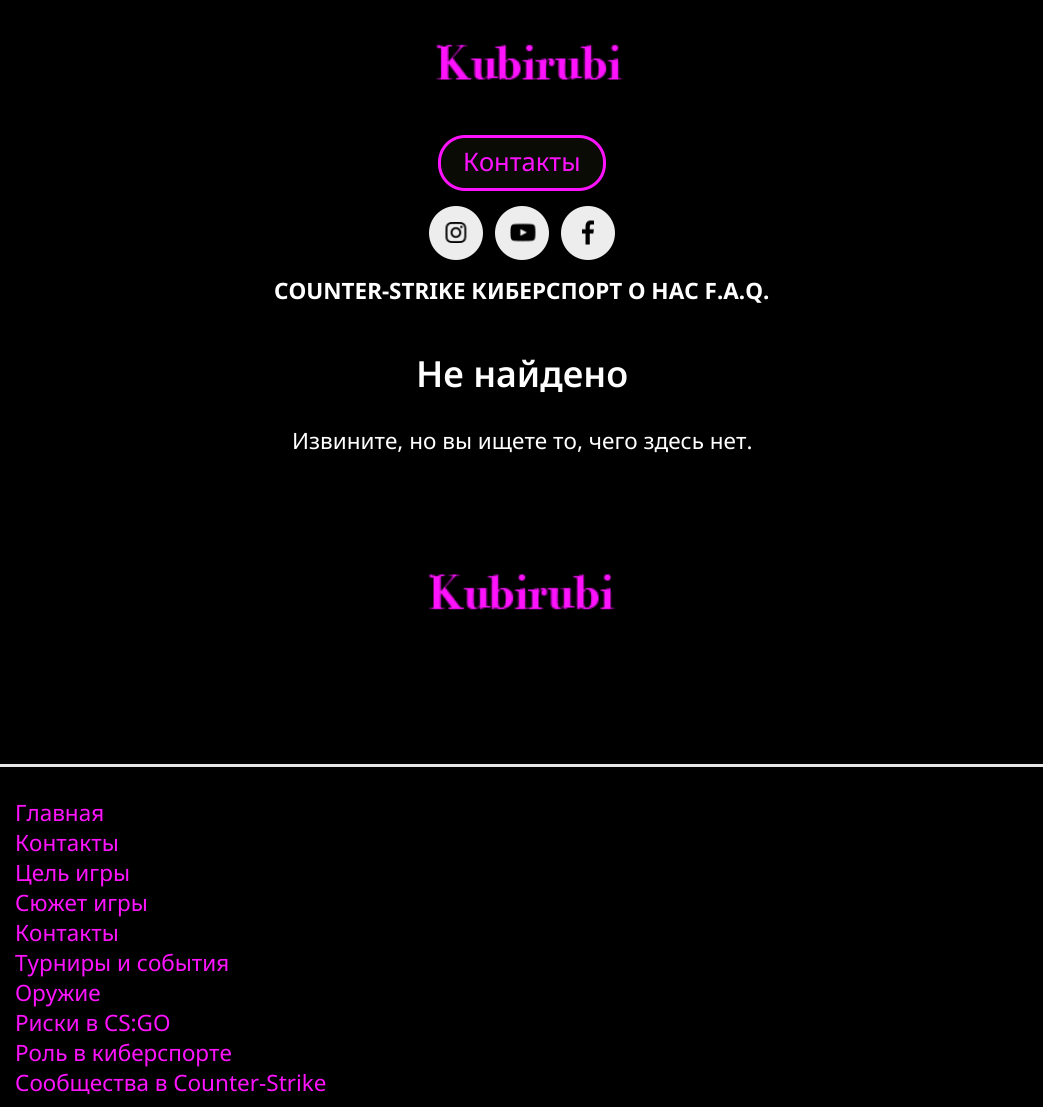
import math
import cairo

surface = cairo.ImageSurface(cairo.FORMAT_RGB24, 1043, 1107)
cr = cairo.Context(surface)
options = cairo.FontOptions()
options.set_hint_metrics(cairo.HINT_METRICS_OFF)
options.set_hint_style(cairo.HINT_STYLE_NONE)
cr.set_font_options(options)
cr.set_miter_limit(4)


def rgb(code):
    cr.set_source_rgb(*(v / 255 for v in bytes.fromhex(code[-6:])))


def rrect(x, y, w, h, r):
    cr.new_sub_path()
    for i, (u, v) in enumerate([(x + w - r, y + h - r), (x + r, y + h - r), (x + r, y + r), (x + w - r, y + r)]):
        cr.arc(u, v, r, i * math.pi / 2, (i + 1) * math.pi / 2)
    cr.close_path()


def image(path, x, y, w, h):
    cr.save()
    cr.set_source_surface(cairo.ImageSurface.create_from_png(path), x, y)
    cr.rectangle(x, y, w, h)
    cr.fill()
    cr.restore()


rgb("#000000")
cr.paint()
image("img/1.png", 436, 44, 187, 36)
rgb("#0a0b05")
rrect(439.5, 136.5, 165, 53, 25.5)
cr.fill_preserve()
rgb("#ff13ff")
cr.set_line_width(3)
cr.stroke()
rgb("#ededed")
cr.arc(456, 233, 27, 0, 2 * math.pi)
cr.fill()
image("img/2.png", 445, 222, 22, 21)
cr.arc(522, 233, 27, 0, 2 * math.pi)
cr.fill()
image("img/3.png", 510, 223, 26, 19)
cr.arc(588, 233, 27, 0, 2 * math.pi)
cr.fill()
image("img/4.png", 582, 220, 12, 25)
image("img/5.png", 428, 574, 188, 36)
rgb("#e7e7e7")
cr.rectangle(0, 764, 1043, 3)
cr.fill()
cr.select_font_face("Noto Sans")
cr.set_font_size(25.5)
rgb("#ff13ff")
cr.move_to(463, 171)
cr.show_text("Контакты")
cr.select_font_face("Noto Sans", cairo.FONT_SLANT_NORMAL, cairo.FONT_WEIGHT_BOLD)
cr.set_font_size(22.5)
rgb("#ffffff")
cr.move_to(274, 299)
cr.show_text("COUNTER-STRIKE КИБЕРСПОРТ О НАС F.A.Q.")
cr.select_font_face("Noto Sans SemiBold")
cr.set_font_size(36)
cr.move_to(416, 387)
cr.show_text("Не найдено")
cr.select_font_face("Noto Sans")
cr.set_font_size(22.5)
cr.move_to(292, 449)
cr.show_text("Извините, но вы ищете то, чего здесь нет.")
rgb("#ff13ff")
for x, y, s in [
    (15, 821, "Главная"),
    (15, 851, "Контакты"),
    (15, 881, "Цель игры"),
    (15, 911, "Сюжет игры"),
    (15, 941, "Контакты"),
    (15, 971, "Турниры и события"),
    (15, 1001, "Оружие"),
    (15, 1031, "Риски в CS:GO"),
    (15, 1061, "Роль в киберспорте"),
    (15, 1091, "Сообщества в Counter-Strike"),
]:
    cr.move_to(x, y)
    cr.show_text(s)
surface.write_to_png("page.png")
